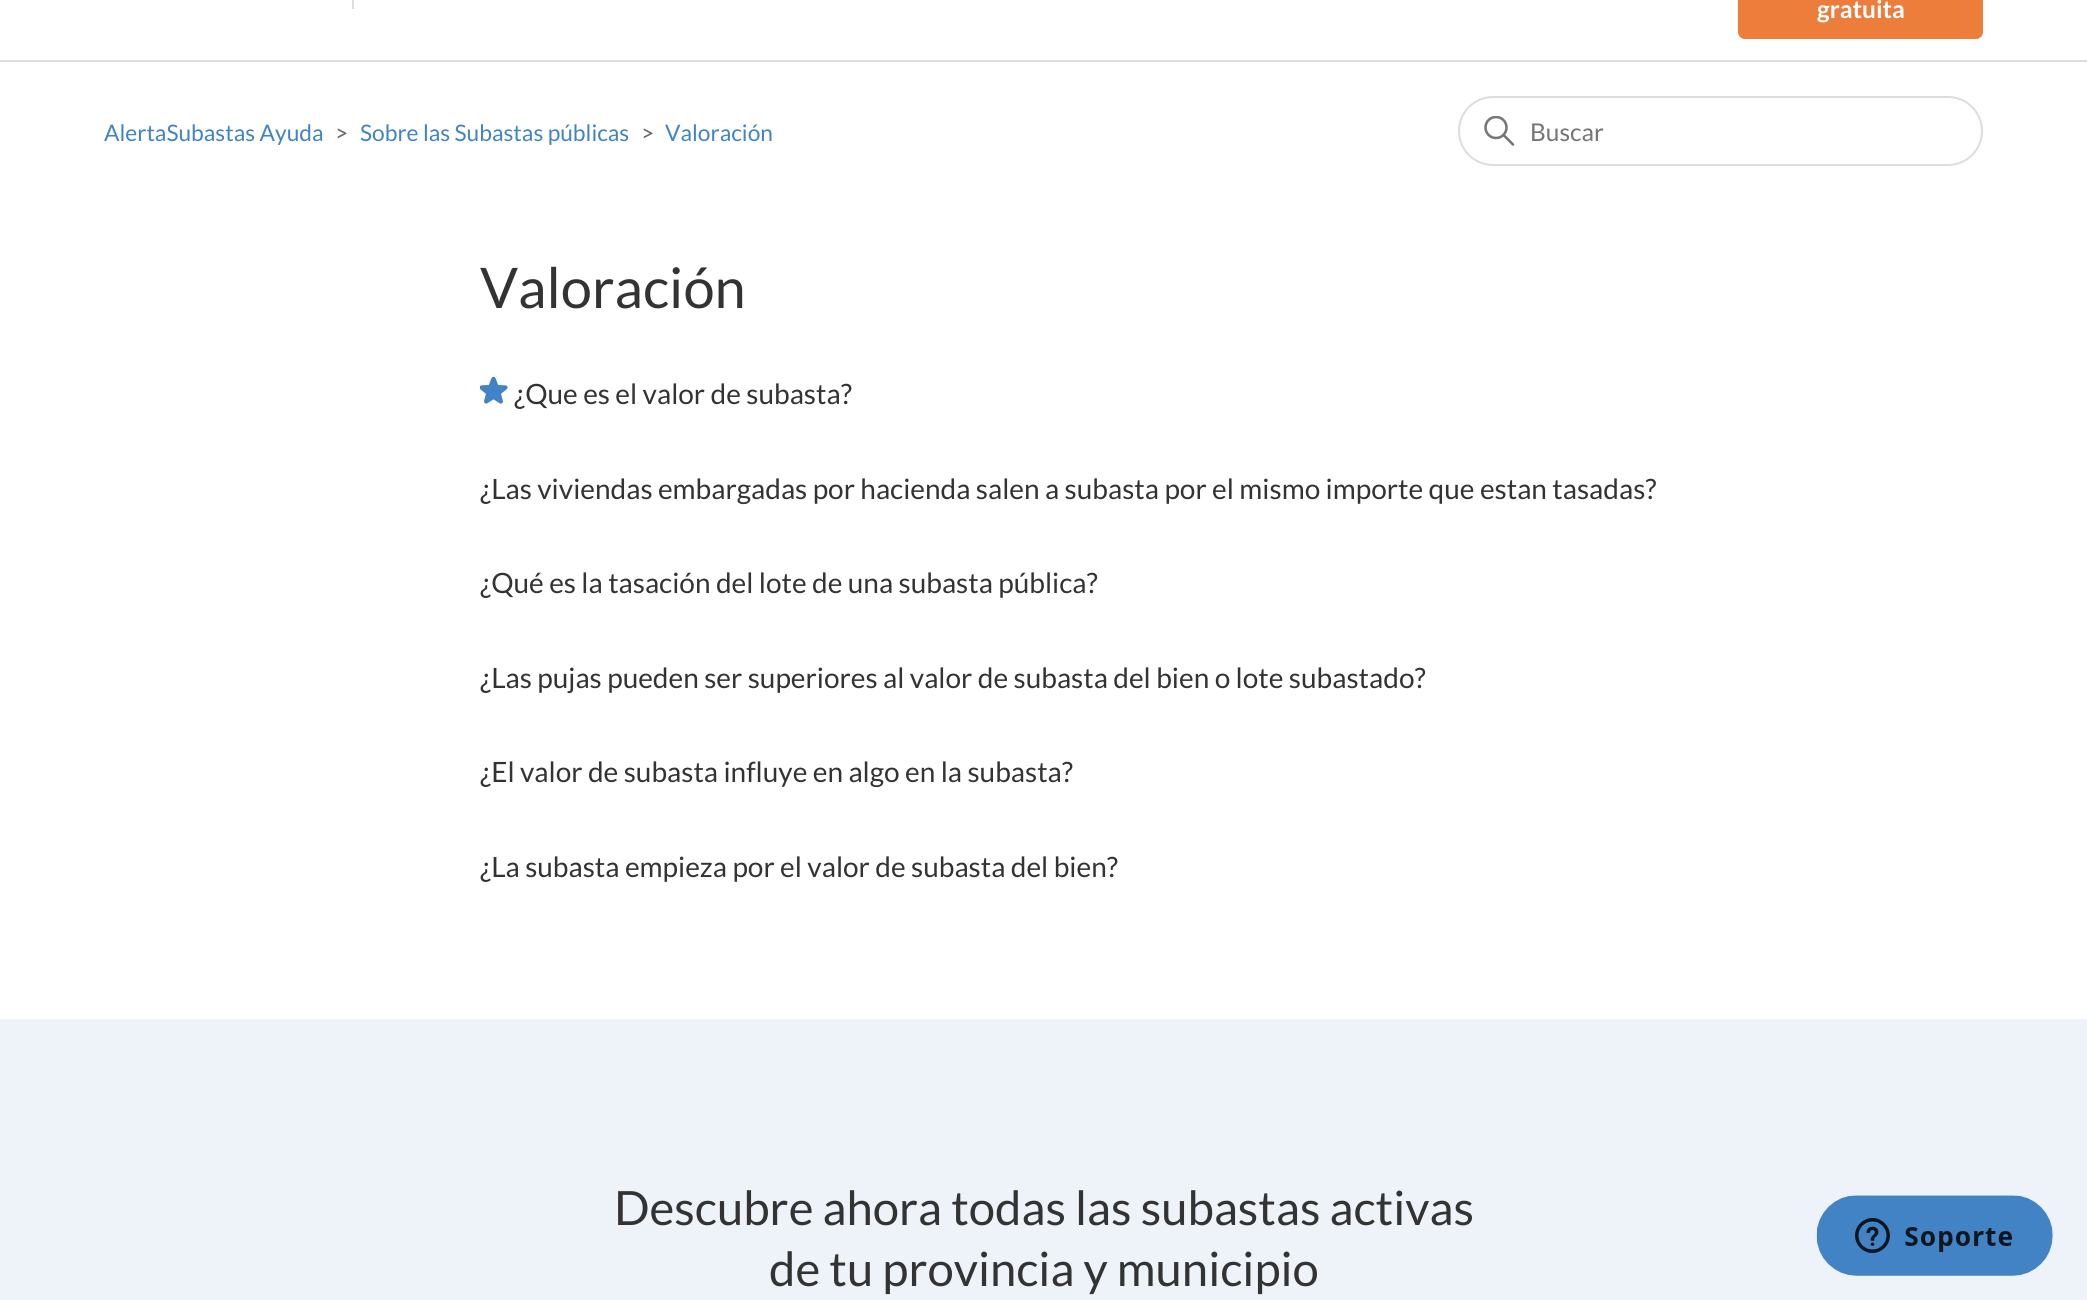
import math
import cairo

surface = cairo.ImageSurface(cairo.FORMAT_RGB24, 2087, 1300)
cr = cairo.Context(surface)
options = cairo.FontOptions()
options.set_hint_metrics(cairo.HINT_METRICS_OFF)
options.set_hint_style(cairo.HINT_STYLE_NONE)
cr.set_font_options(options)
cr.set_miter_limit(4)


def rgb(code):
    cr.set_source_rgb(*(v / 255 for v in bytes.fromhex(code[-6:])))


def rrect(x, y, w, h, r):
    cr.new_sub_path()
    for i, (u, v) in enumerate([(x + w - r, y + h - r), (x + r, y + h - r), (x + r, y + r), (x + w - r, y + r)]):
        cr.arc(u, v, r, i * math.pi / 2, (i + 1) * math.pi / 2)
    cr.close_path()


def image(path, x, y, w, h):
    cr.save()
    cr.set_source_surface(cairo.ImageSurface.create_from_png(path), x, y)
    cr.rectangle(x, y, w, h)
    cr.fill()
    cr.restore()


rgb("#ffffff")
cr.paint()
rgb("#dddddd")
cr.rectangle(352, 0, 2, 9)
cr.fill()
rgb("#ed7d3a")
rrect(1738, -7, 245, 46, 7)
cr.fill()
rgb("#dddddd")
cr.rectangle(0, 60, 2087, 2)
cr.fill()
rrect(1459, 97, 523, 68, 34)
cr.stroke()
cr.save()
cr.rectangle(1484, 116, 32, 31)
cr.clip()
cr.arc(1496, 127.5, 10.5, 0, 2 * math.pi)
rgb("#777777")
cr.set_line_width(2.6)
cr.stroke()
cr.restore()
cr.new_path()
cr.move_to(1513, 144.5)
cr.line_to(1503.5, 135)
rgb("#777777")
cr.set_line_width(2.6)
cr.set_line_cap(cairo.LINE_CAP_ROUND)
cr.stroke()
image("img/1.png", 480, 376, 28, 28)
rgb("#edf3f9")
cr.rectangle(0, 1019, 2087, 281)
cr.fill()
image("img/2.png", 1816, 1195, 237, 81)
cr.select_font_face("Lato", cairo.FONT_SLANT_NORMAL, cairo.FONT_WEIGHT_BOLD)
cr.set_font_size(24.5)
rgb("#ffffff")
cr.move_to(1817, 18)
cr.show_text("gratuita")
cr.select_font_face("Lato")
cr.set_font_size(22.75)
rgb("#4183c4")
cr.move_to(104, 141)
cr.show_text("AlertaSubastas Ayuda")
rgb("#666666")
cr.move_to(335, 141)
cr.show_text(">")
rgb("#4183c4")
cr.move_to(360, 141)
cr.show_text("Sobre las Subastas públicas")
rgb("#666666")
cr.move_to(641, 141)
cr.show_text(">")
rgb("#4183c4")
cr.move_to(665, 141)
cr.show_text("Valoración")
cr.set_font_size(24.5)
rgb("#757575")
cr.move_to(1530, 141)
cr.show_text("Buscar")
cr.set_font_size(56)
rgb("#333333")
cr.move_to(480, 308)
cr.show_text("Valoración")
cr.set_font_size(28)
for x, y, s in [
    (514, 404, "¿Que es el valor de subasta?"),
    (480, 499, "¿Las viviendas embargadas por hacienda salen a subasta por el mismo importe que estan tasadas?"),
    (480, 593, "¿Qué es la tasación del lote de una subasta pública?"),
    (480, 688, "¿Las pujas pueden ser superiores al valor de subasta del bien o lote subastado?"),
    (480, 782, "¿El valor de subasta influye en algo en la subasta?"),
    (480, 877, "¿La subasta empieza por el valor de subasta del bien?"),
]:
    cr.move_to(x, y)
    cr.show_text(s)
cr.set_font_size(47.25)
cr.move_to(614, 1225)
cr.show_text("Descubre ahora todas las subastas activas")
cr.move_to(769, 1286)
cr.show_text("de tu provincia y municipio")
surface.write_to_png("page.png")
